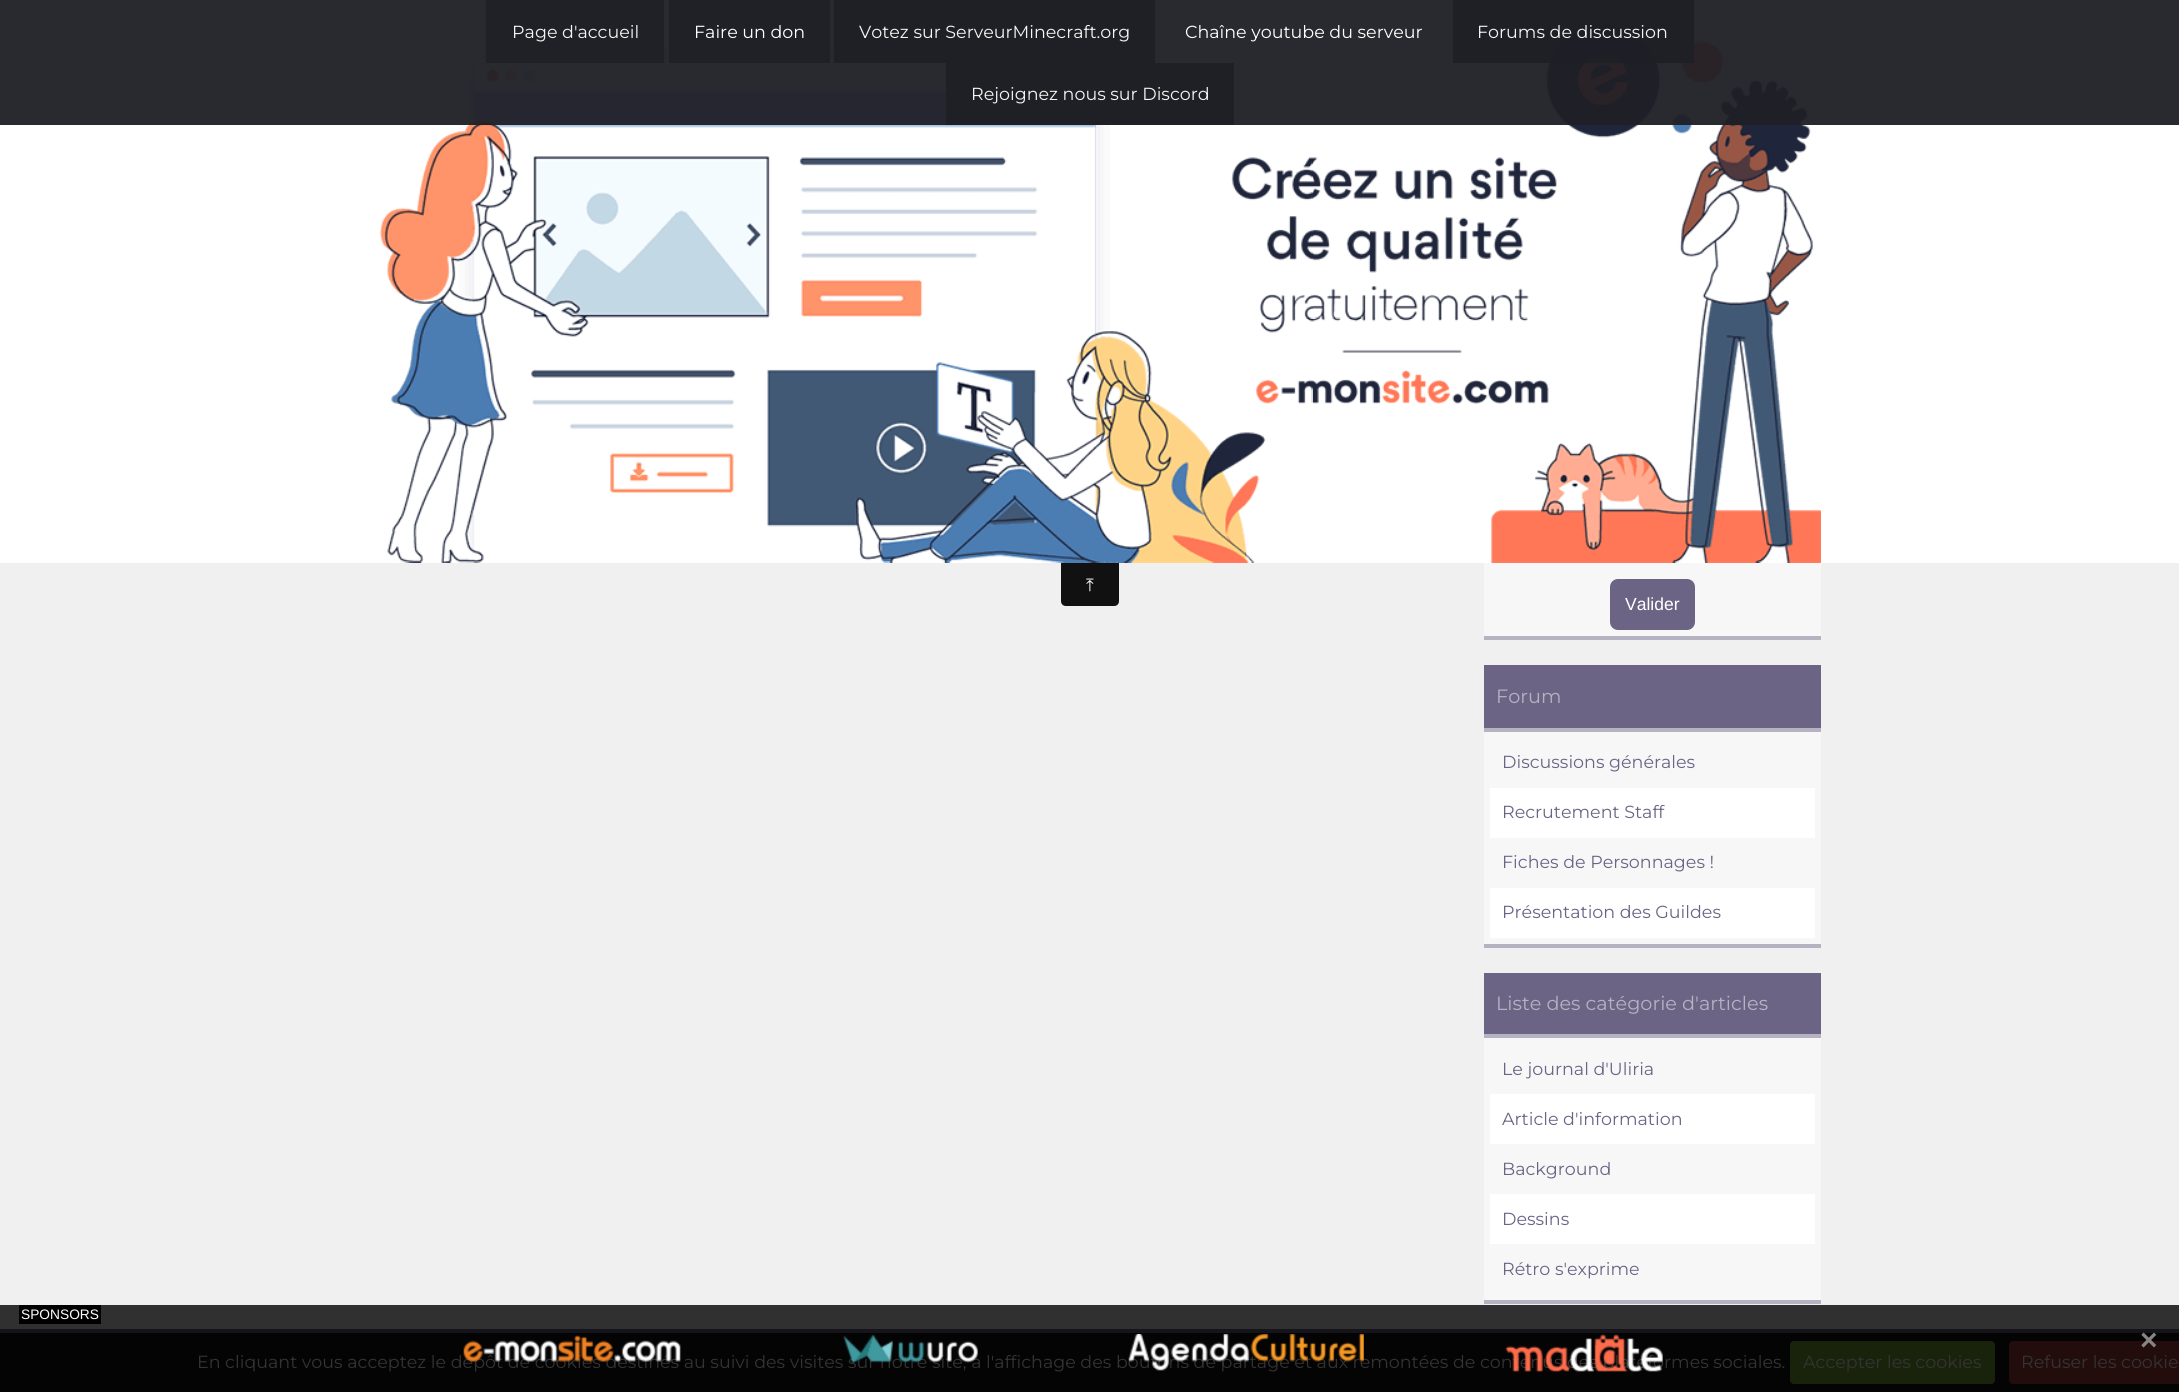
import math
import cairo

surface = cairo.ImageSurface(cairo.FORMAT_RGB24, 2179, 1392)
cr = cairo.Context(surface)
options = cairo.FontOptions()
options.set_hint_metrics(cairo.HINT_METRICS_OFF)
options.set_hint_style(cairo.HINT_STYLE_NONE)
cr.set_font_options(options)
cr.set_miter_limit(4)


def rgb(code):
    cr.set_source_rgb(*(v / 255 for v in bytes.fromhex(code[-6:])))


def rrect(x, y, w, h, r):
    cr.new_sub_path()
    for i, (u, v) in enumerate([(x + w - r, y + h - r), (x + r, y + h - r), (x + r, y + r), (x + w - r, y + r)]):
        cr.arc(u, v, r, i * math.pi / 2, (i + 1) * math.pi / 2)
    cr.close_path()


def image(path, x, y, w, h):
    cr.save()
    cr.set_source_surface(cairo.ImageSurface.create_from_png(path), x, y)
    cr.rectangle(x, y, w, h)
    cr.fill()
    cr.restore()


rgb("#f0f0f0")
cr.paint()
rgb("#303030")
cr.rectangle(0, 1305, 2179, 24)
cr.fill()
rgb("#ffffff")
cr.rectangle(0, 0, 2179, 563)
cr.fill()
image("img/1.png", 380, 12, 1441, 551)
cr.set_source_rgba(0.122, 0.122, 0.149, 0.95)
cr.rectangle(0, 0, 2179, 125)
cr.fill()
rgb("#202027")
cr.rectangle(486, 0, 178, 63)
cr.rectangle(669, 0, 161, 63)
cr.fill()
cr.set_source_rgba(0.122, 0.122, 0.149, 0.95)
cr.rectangle(834, 0, 321, 63)
cr.fill()
cr.rectangle(1453, 0, 241, 63)
cr.fill()
cr.rectangle(946, 63, 288, 62)
cr.fill()
rgb("#111111")
cr.new_path()
cr.move_to(1061, 563)
cr.line_to(1119, 563)
cr.line_to(1119, 601)
cr.curve_to(1119, 604, 1117, 606, 1114, 606)
cr.line_to(1066, 606)
cr.curve_to(1063, 606, 1061, 604, 1061, 601)
cr.close_path()
cr.fill()
rgb("#f7f7f7")
cr.rectangle(1484, 563, 337, 73)
cr.fill()
rgb("#b5b2c2")
cr.rectangle(1484, 636, 337, 4)
cr.fill()
rgb("#6b6485")
rrect(1610, 579, 85, 51, 8)
cr.fill()
for x, y, w, h, color in [
    (1484, 665, 337, 63, "#6b6485"),
    (1484, 728, 337, 4, "#b5b2c2"),
    (1484, 732, 337, 212, "#f7f7f7"),
    (1484, 944, 337, 4, "#b5b2c2"),
    (1490, 788, 325, 50, "#ffffff"),
    (1490, 888, 325, 50, "#ffffff"),
    (1484, 973, 337, 61, "#6b6485"),
    (1484, 1034, 337, 4, "#b5b2c2"),
    (1484, 1038, 337, 262, "#f7f7f7"),
    (1484, 1300, 337, 4, "#b5b2c2"),
    (1490, 1094, 325, 50, "#ffffff"),
    (1490, 1194, 325, 50, "#ffffff"),
    (19, 1305, 82, 19, "#000000"),
    (0, 1329, 2179, 4, "#15141b"),
    (0, 1333, 2179, 59, "#040405"),
    (371, 1361, 279, 1, "#070708"),
    (666, 1361, 280, 1, "#070708"),
]:
    rgb(color)
    cr.rectangle(x, y, w, h)
    cr.fill()
rgb("#19230c")
rrect(1790, 1341, 205, 43, 4)
cr.fill()
rgb("#230c0c")
rrect(2009, 1341, 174, 43, 4)
cr.fill()
cr.select_font_face("Montserrat Thin")
cr.set_font_size(17.5)
rgb("#f4f4f4")
cr.move_to(512, 38)
cr.show_text("Page d'accueil")
rgb("#ffffff")
cr.move_to(694, 38)
cr.show_text("Faire un don")
rgb("#f4f4f4")
cr.move_to(859, 38)
cr.show_text("Votez sur ServeurMinecraft.org")
rgb("#ffffff")
cr.move_to(1185, 38)
cr.show_text("Chaîne youtube du serveur")
rgb("#f4f4f4")
cr.move_to(1477, 38)
cr.show_text("Forums de discussion")
cr.move_to(971, 100)
cr.show_text("Rejoignez nous sur Discord")
cr.select_font_face("FreeSerif")
rgb("#ffffff")
cr.move_to(1086, 591)
cr.show_text("⤒")
cr.select_font_face("Liberation Sans")
cr.move_to(1625, 610)
cr.show_text("Valider")
cr.select_font_face("Montserrat Thin")
cr.set_font_size(19.25)
rgb("#b5b2c2")
cr.move_to(1496, 703)
cr.show_text("Forum")
cr.set_font_size(17.5)
rgb("#6b6485")
for x, y, s in [
    (1502, 768, "Discussions générales"),
    (1502, 818, "Recrutement Staff"),
    (1502, 868, "Fiches de Personnages !"),
    (1502, 918, "Présentation des Guildes"),
]:
    cr.move_to(x, y)
    cr.show_text(s)
cr.set_font_size(19.25)
rgb("#b5b2c2")
cr.move_to(1496, 1010)
cr.show_text("Liste des catégorie d'articles")
cr.set_font_size(17.5)
rgb("#6b6485")
for x, y, s in [
    (1502, 1075, "Le journal d'Uliria"),
    (1502, 1125, "Article d'information"),
    (1502, 1175, "Background"),
    (1502, 1225, "Dessins"),
    (1502, 1275, "Rétro s'exprime"),
]:
    cr.move_to(x, y)
    cr.show_text(s)
cr.select_font_face("Liberation Sans")
cr.set_font_size(13.75)
rgb("#ffffff")
cr.move_to(21, 1319)
cr.show_text("SPONSORS")
cr.select_font_face("Liberation Sans", cairo.FONT_SLANT_NORMAL, cairo.FONT_WEIGHT_BOLD)
cr.set_font_size(30)
rgb("#898384")
cr.move_to(2140, 1350)
cr.show_text("×")
cr.select_font_face("Montserrat Thin")
cr.set_font_size(17.5)
rgb("#333333")
cr.move_to(197, 1368)
cr.show_text("En cliquant vous acceptez le dépôt de cookies destinés au suivi des visites sur notre site, à l'affichage des boutons de partage et aux remontées de contenus des plateformes sociales.")
image("img/5.png", 1505, 1334, 158, 38)
image("img/4.png", 1128, 1334, 236, 37)
image("img/3.png", 843, 1334, 135, 29)
image("img/2.png", 463, 1335, 218, 27)
cr.move_to(1803, 1368)
cr.show_text("Accepter les cookies")
cr.move_to(2021, 1368)
cr.show_text("Refuser les cookie")
surface.write_to_png("page.png")
